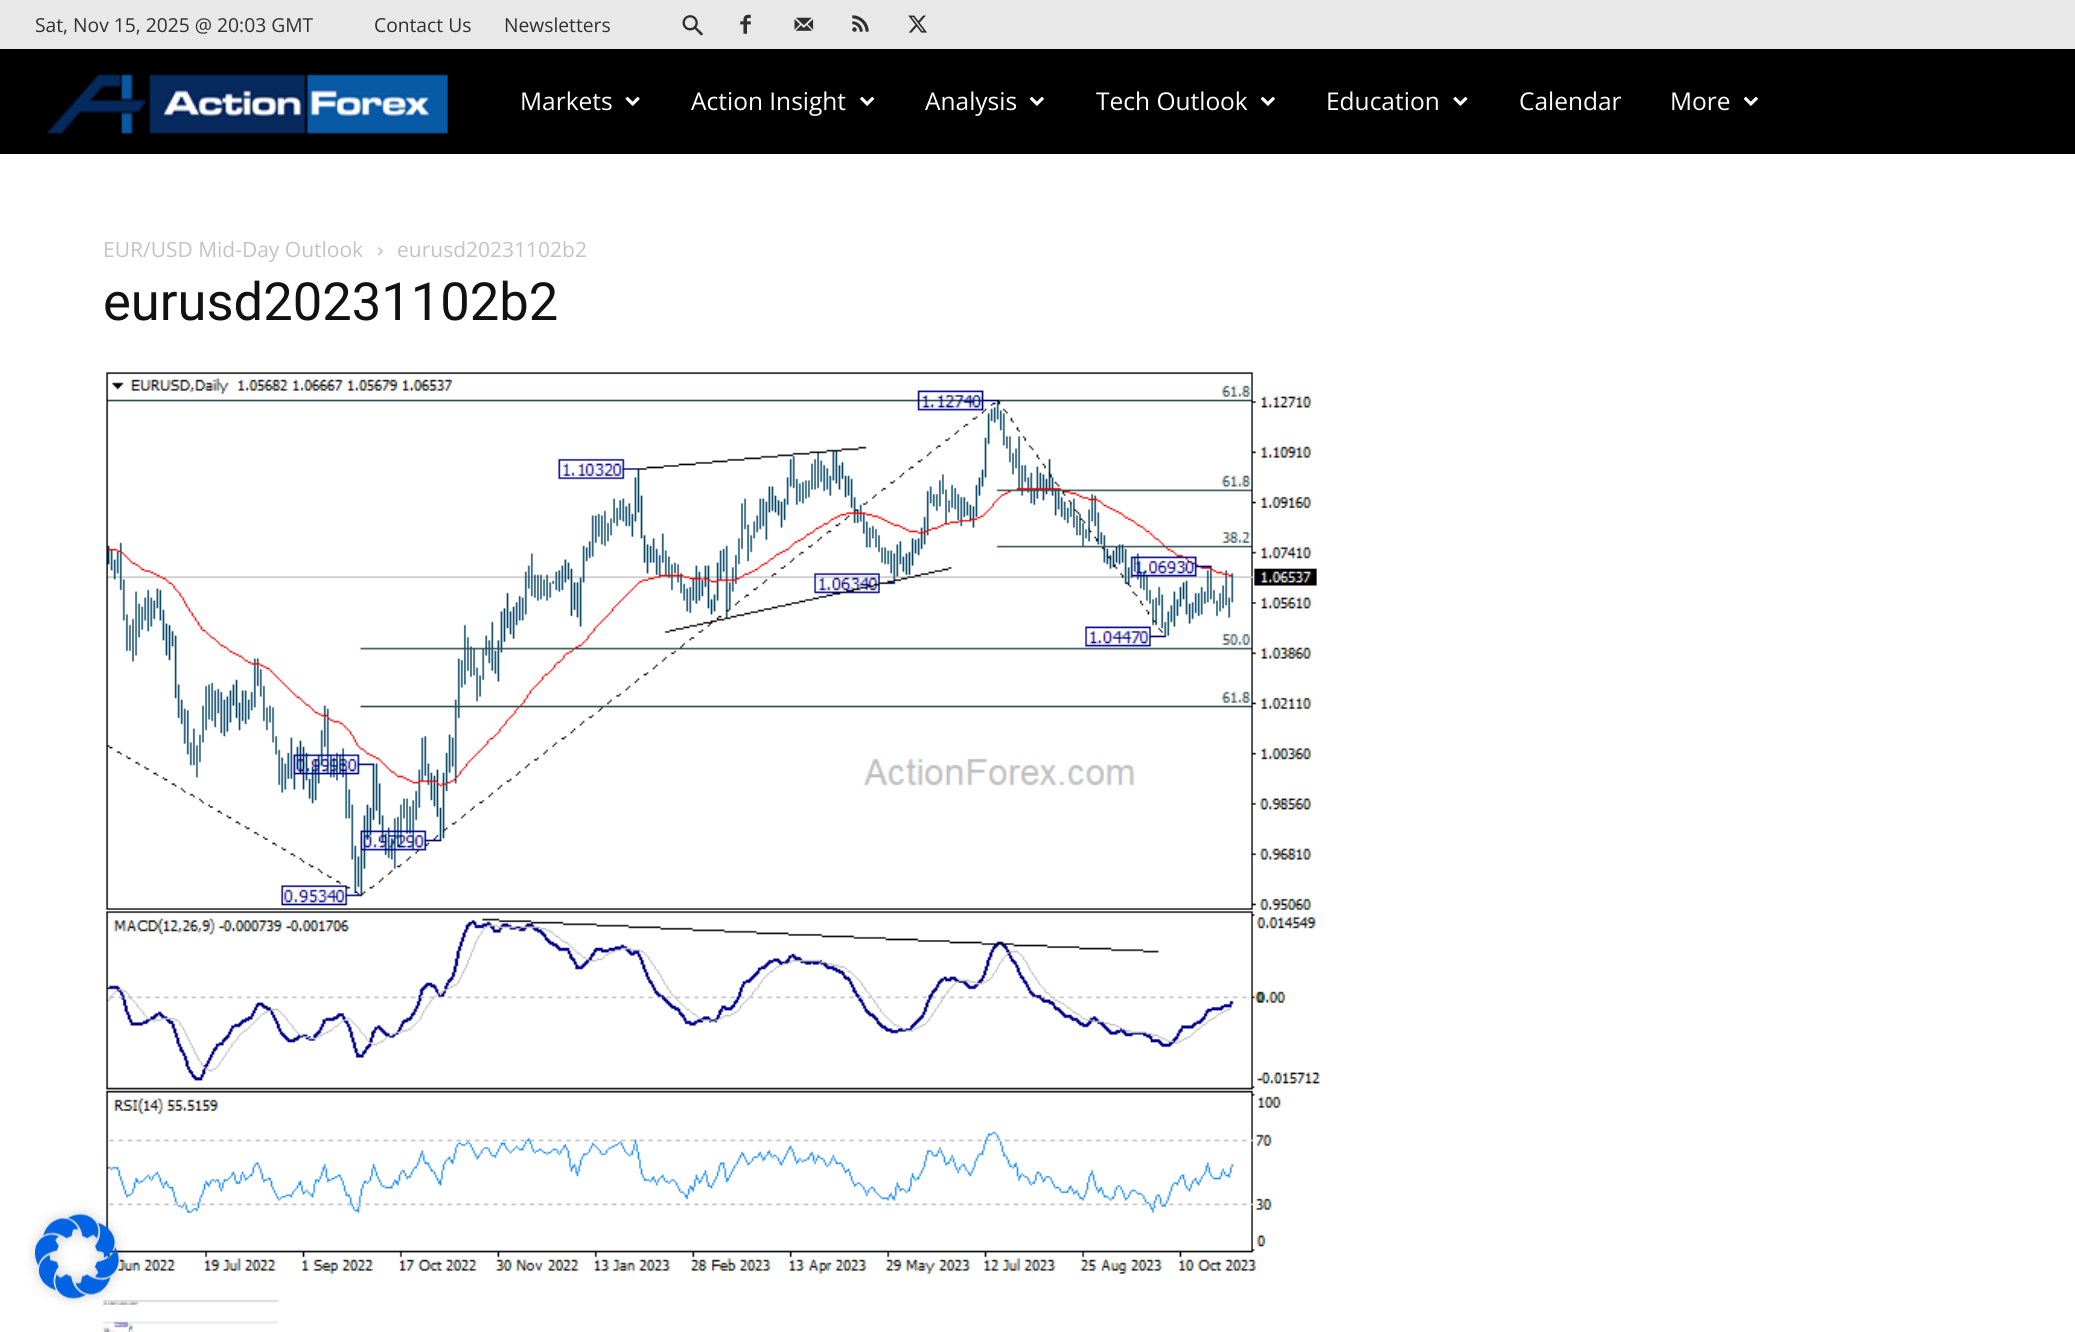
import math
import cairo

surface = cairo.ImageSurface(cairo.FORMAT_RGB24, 2075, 1332)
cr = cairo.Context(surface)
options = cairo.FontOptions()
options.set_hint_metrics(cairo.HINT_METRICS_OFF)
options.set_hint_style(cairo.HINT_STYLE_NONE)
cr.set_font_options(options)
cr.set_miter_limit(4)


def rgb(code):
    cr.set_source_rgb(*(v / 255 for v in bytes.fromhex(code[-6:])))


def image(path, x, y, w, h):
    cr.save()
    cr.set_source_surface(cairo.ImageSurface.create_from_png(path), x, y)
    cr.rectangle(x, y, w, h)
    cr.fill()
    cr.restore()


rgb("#ffffff")
cr.paint()
rgb("#e8e8e8")
cr.rectangle(0, 0, 2075, 49)
cr.fill()
image("img/1.png", 682, 15, 21, 21)
image("img/2.png", 740, 14, 11, 20)
image("img/3.png", 794, 17, 20, 14)
image("img/4.png", 852, 15, 17, 17)
image("img/5.png", 908, 15, 19, 18)
rgb("#000000")
cr.rectangle(0, 49, 2075, 105)
cr.fill()
image("img/6.png", 47, 74, 401, 60)
image("img/7.png", 625, 96, 15, 10)
image("img/8.png", 860, 96, 15, 10)
image("img/9.png", 1029, 96, 15, 10)
image("img/9.png", 1260, 96, 15, 10)
image("img/10.png", 1453, 96, 15, 10)
image("img/9.png", 1743, 96, 15, 10)
image("img/11.png", 378, 247, 5, 9)
image("img/12.png", 106, 372, 1214, 902)
image("img/13.png", 103, 1300, 176, 32)
image("img/14.png", 28, 1207, 98, 98)
cr.select_font_face("Open Sans")
cr.set_font_size(19.25)
rgb("#2f2f2f")
for x, y, s in [
    (35, 32, "Sat, Nov 15, 2025 @ 20:03 GMT"),
    (374, 32, "Contact Us"),
    (504, 32, "Newsletters"),
]:
    cr.move_to(x, y)
    cr.show_text(s)
cr.set_font_size(24.5)
rgb("#ffffff")
for x, y, s in [
    (520, 110, "Markets"),
    (691, 110, "Action Insight"),
    (925, 110, "Analysis"),
    (1096, 110, "Tech Outlook"),
    (1326, 110, "Education"),
    (1519, 110, "Calendar"),
    (1670, 110, "More"),
]:
    cr.move_to(x, y)
    cr.show_text(s)
cr.set_font_size(21)
rgb("#c3c3c3")
cr.move_to(103, 257)
cr.show_text("EUR/USD Mid-Day Outlook")
cr.move_to(397, 257)
cr.show_text("eurusd20231102b2")
cr.select_font_face("Roboto")
cr.set_font_size(52.5)
rgb("#111111")
cr.move_to(103, 320)
cr.show_text("eurusd20231102b2")
surface.write_to_png("page.png")
